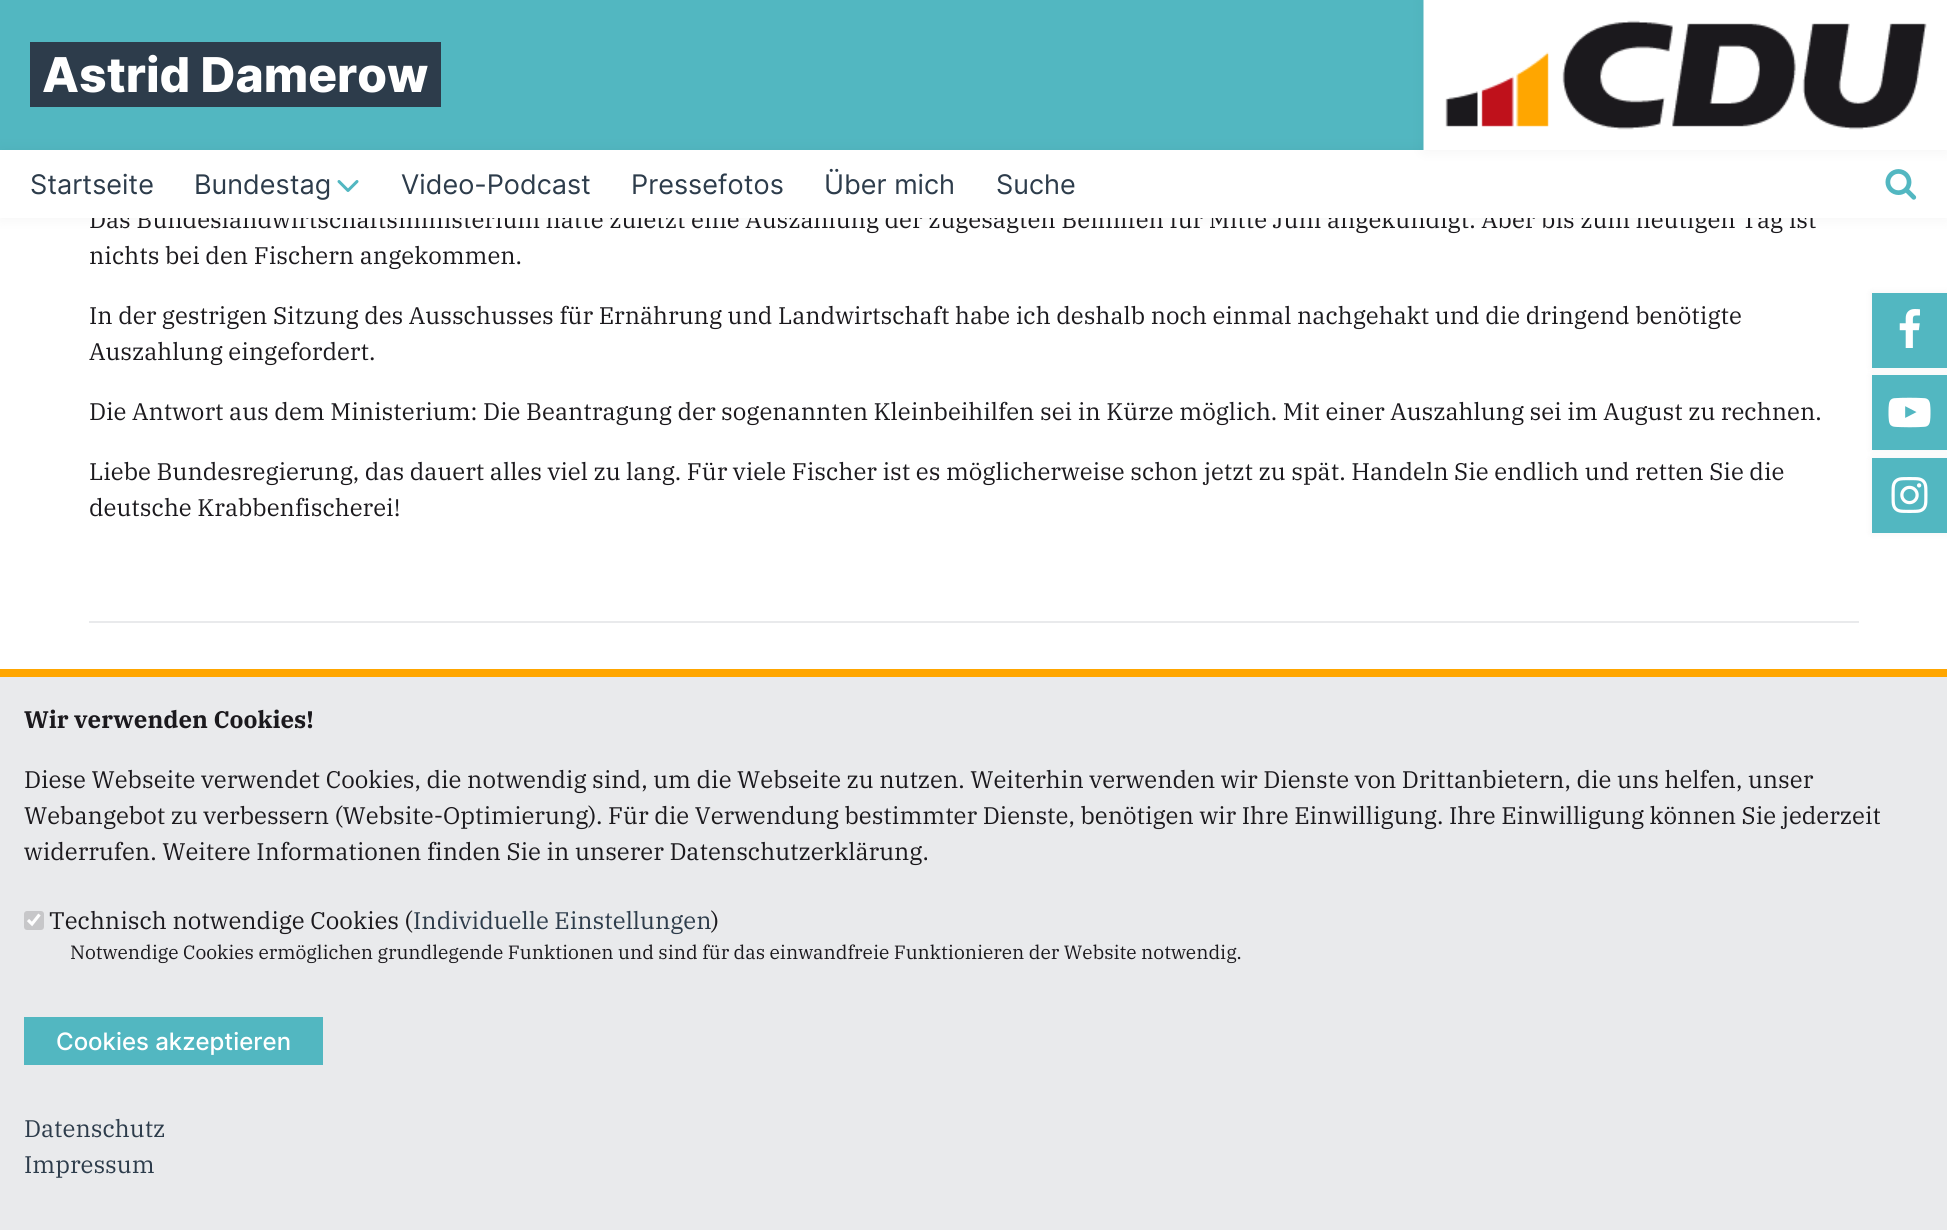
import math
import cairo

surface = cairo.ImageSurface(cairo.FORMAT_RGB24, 1947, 1230)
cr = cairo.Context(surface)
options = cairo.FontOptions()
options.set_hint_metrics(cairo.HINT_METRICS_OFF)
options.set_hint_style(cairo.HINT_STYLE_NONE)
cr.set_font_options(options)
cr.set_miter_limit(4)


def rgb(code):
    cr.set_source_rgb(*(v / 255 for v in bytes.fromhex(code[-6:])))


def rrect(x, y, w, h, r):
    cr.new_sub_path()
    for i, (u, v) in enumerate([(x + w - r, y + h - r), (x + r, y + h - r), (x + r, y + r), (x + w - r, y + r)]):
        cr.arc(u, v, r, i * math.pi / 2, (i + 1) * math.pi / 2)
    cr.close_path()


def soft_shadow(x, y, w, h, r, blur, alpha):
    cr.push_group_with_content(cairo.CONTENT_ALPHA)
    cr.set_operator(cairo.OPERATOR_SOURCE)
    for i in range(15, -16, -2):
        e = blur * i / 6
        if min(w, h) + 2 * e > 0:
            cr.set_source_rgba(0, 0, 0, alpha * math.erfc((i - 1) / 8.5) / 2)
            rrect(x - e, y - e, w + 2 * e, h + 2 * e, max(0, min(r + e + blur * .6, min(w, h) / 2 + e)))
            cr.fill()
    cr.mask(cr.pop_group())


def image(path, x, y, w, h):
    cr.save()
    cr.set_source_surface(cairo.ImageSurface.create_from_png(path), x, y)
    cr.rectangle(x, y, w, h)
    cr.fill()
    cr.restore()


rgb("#ffffff")
cr.paint()
rgb("#52b7c1")
cr.rectangle(0, 0, 1424, 150)
cr.fill()
rgb("#2d3c4b")
cr.rectangle(30, 42, 411, 65)
cr.fill()
rgb("#000000")
soft_shadow(0, 150, 1947, 68, 0, 7.5, 0.05)
rgb("#e9eaec")
cr.rectangle(89, 621, 1770, 2)
cr.fill()
rgb("#000000")
soft_shadow(1872, 293, 75, 75, 0, 4, 0.05)
rgb("#52b7c1")
cr.rectangle(1872, 293, 75, 75)
cr.fill()
image("img/4.png", 1899, 309, 21, 39)
rgb("#000000")
soft_shadow(1872, 375, 75, 75, 0, 4, 0.05)
rgb("#52b7c1")
cr.rectangle(1872, 375, 75, 75)
cr.fill()
image("img/5.png", 1888, 397, 43, 31)
rgb("#000000")
soft_shadow(1872, 458, 75, 75, 0, 4, 0.05)
rgb("#52b7c1")
cr.rectangle(1872, 458, 75, 75)
cr.fill()
image("img/6.png", 1891, 477, 37, 36)
rgb("#e9eaec")
cr.rectangle(0, 677, 1947, 553)
cr.fill()
rgb("#ffa600")
cr.rectangle(0, 669, 1947, 8)
cr.fill()
rgb("#c7c7c9")
rrect(24, 911, 20, 19, 3)
cr.fill()
cr.new_path()
cr.move_to(28, 920)
cr.line_to(32, 924)
cr.line_to(39.5, 914.5)
rgb("#ffffff")
cr.set_line_width(3.1)
cr.stroke()
rgb("#52b7c1")
cr.rectangle(24, 1017, 299, 48)
cr.fill()
cr.select_font_face("Inter ExtraBold")
cr.set_font_size(48)
rgb("#ffffff")
cr.move_to(42, 92)
cr.show_text("Astrid Damerow")
cr.select_font_face("IBM Plex Serif")
cr.set_font_size(24)
rgb("#1b191d")
cr.move_to(89, 228)
cr.show_text("Das Bundeslandwirtschaftsministerium hatte zuletzt eine Auszahlung der zugesagten Beihilfen für Mitte Juni angekündigt. Aber bis zum heutigen Tag ist")
rgb("#ffffff")
cr.rectangle(0, 150, 1947, 68)
cr.fill()
rgb("#000000")
soft_shadow(1424, 0, 523, 150, 0, 7.5, 0.05)
image("img/3.png", 1885, 169, 32, 31)
cr.select_font_face("Inter")
cr.set_font_size(27)
rgb("#2d3c4b")
for x, y, s in [
    (996, 194, "Suche"),
    (824, 194, "Über mich"),
    (631, 194, "Pressefotos"),
    (401, 194, "Video-Podcast"),
]:
    cr.move_to(x, y)
    cr.show_text(s)
image("img/2.png", 337, 180, 22, 12)
cr.move_to(194, 194)
cr.show_text("Bundestag")
cr.move_to(30, 194)
cr.show_text("Startseite")
image("img/1.png", 1423, 0, 524, 150)
cr.select_font_face("IBM Plex Serif")
cr.set_font_size(24)
rgb("#1b191d")
for x, y, s in [
    (89, 264, "nichts bei den Fischern angekommen."),
    (89, 324, "In der gestrigen Sitzung des Ausschusses für Ernährung und Landwirtschaft habe ich deshalb noch einmal nachgehakt und die dringend benötigte"),
    (89, 360, "Auszahlung eingefordert."),
    (89, 420, "Die Antwort aus dem Ministerium: Die Beantragung der sogenannten Kleinbeihilfen sei in Kürze möglich. Mit einer Auszahlung sei im August zu rechnen."),
    (89, 480, "Liebe Bundesregierung, das dauert alles viel zu lang. Für viele Fischer ist es möglicherweise schon jetzt zu spät. Handeln Sie endlich und retten Sie die"),
    (89, 516, "deutsche Krabbenfischerei!"),
]:
    cr.move_to(x, y)
    cr.show_text(s)
cr.select_font_face("IBM Plex Serif", cairo.FONT_SLANT_NORMAL, cairo.FONT_WEIGHT_BOLD)
cr.move_to(24, 728)
cr.show_text("Wir verwenden Cookies!")
cr.select_font_face("IBM Plex Serif")
for x, y, s in [
    (24, 788, "Diese Webseite verwendet Cookies, die notwendig sind, um die Webseite zu nutzen. Weiterhin verwenden wir Dienste von Drittanbietern, die uns helfen, unser"),
    (24, 824, "Webangebot zu verbessern (Website-Optimierung). Für die Verwendung bestimmter Dienste, benötigen wir Ihre Einwilligung. Ihre Einwilligung können Sie jederzeit"),
    (24, 860, "widerrufen. Weitere Informationen finden Sie in unserer Datenschutzerklärung."),
    (49, 929, "Technisch notwendige Cookies ("),
]:
    cr.move_to(x, y)
    cr.show_text(s)
rgb("#2d3c4b")
cr.move_to(413, 929)
cr.show_text("Individuelle Einstellungen")
rgb("#1b191d")
cr.move_to(711, 929)
cr.show_text(")")
cr.set_font_size(19.2)
cr.move_to(70, 959)
cr.show_text("Notwendige Cookies ermöglichen grundlegende Funktionen und sind für das einwandfreie Funktionieren der Website notwendig.")
cr.select_font_face("Inter Medium")
cr.set_font_size(24)
rgb("#ffffff")
cr.move_to(56, 1050)
cr.show_text("Cookies akzeptieren")
cr.select_font_face("IBM Plex Serif")
rgb("#2d3c4b")
cr.move_to(24, 1137)
cr.show_text("Datenschutz")
cr.move_to(24, 1173)
cr.show_text("Impressum")
surface.write_to_png("page.png")
